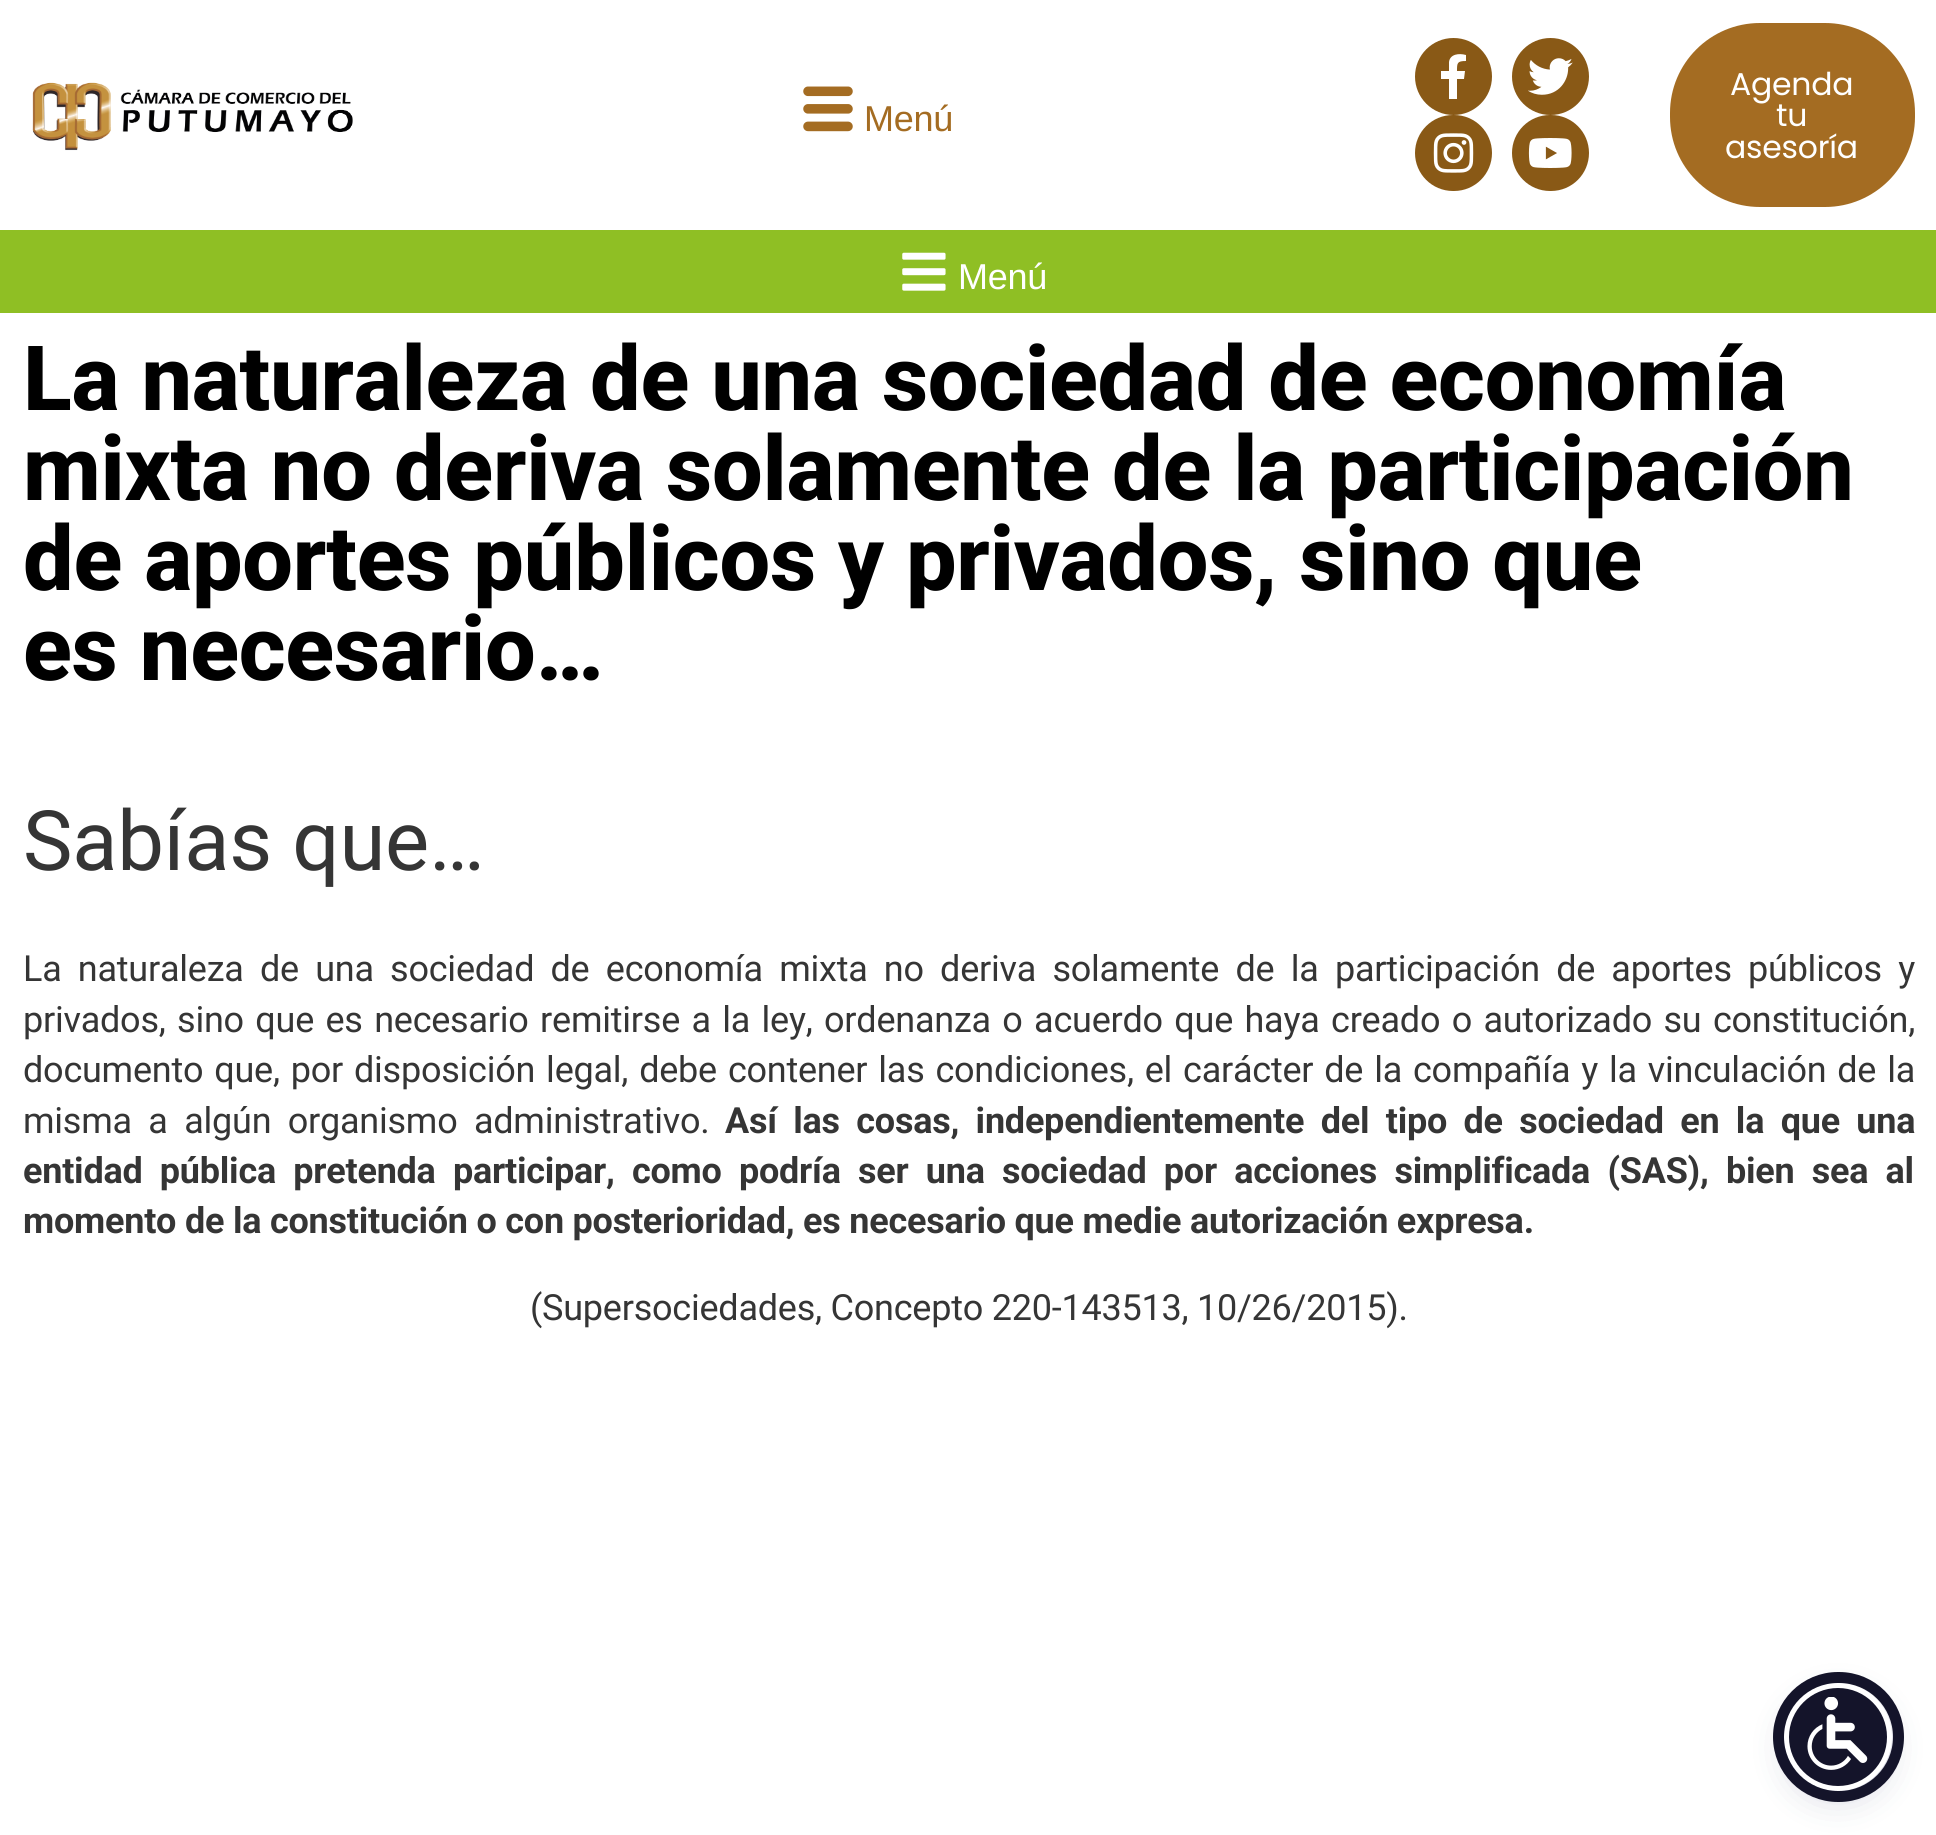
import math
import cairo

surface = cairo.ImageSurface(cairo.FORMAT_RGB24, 1936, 1835)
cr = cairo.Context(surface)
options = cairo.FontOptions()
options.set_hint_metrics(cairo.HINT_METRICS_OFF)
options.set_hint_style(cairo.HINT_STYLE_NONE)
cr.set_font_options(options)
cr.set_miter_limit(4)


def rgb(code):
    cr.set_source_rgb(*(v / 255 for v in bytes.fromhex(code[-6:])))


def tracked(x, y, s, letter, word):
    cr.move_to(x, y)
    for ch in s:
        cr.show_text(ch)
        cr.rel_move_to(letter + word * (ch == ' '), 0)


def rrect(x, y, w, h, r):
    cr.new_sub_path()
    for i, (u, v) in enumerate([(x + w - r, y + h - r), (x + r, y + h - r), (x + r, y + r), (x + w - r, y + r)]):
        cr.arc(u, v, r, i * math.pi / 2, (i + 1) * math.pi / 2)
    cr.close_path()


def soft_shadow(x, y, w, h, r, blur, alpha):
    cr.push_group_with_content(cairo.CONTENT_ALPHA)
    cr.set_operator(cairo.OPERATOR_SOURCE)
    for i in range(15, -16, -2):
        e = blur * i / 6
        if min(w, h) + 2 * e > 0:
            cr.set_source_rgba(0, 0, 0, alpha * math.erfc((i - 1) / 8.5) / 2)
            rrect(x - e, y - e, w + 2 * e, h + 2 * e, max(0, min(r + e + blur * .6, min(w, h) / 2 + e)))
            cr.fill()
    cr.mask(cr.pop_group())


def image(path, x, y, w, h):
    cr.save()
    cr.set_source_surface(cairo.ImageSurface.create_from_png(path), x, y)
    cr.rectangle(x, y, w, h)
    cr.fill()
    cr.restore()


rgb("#ffffff")
cr.paint()
image("img/1.png", 32, 82, 321, 69)
image("img/2.png", 803, 86, 50, 46)
rgb("#895916")
cr.arc(1453.5, 76.5, 38.5, 0, 2 * math.pi)
cr.fill()
rgb("#ffffff")
cr.new_path()
cr.move_to(1464, 79)
cr.line_to(1465, 71)
cr.line_to(1457, 71)
cr.curve_to(1457, 63, 1457, 61, 1466, 61)
cr.line_to(1466, 55)
cr.curve_to(1459, 53, 1450, 54, 1449, 62)
cr.line_to(1449, 71)
cr.line_to(1441, 71)
cr.line_to(1441, 79)
cr.line_to(1449, 79)
cr.line_to(1449, 99)
cr.line_to(1457, 99)
cr.line_to(1457, 79)
cr.close_path()
cr.fill()
rgb("#895916")
cr.arc(1550.5, 76.5, 38.5, 0, 2 * math.pi)
cr.fill()
image("img/3.png", 1528, 58, 45, 37)
rrect(1415, 115, 77, 76, 38)
cr.fill()
image("img/4.png", 1433, 133, 41, 40)
rrect(1512, 115, 77, 76, 38)
cr.fill()
image("img/5.png", 1528, 138, 44, 30)
rgb("#a46c22")
rrect(1670, 23, 245, 184, 90)
cr.fill()
rgb("#8fbf24")
cr.rectangle(0, 230, 1936, 83)
cr.fill()
image("img/6.png", 902, 252, 44, 39)
rgb("#5d6494")
soft_shadow(1784, 1688, 108, 108, 54, 4.5, 0.2)
rgb("#252c61")
soft_shadow(1784, 1694, 108, 108, 54, 17, 0.15)
rgb("#14142a")
cr.arc(1838, 1737, 51.5, 0, 2 * math.pi)
cr.fill_preserve()
rgb("#ffffff")
cr.set_line_width(5)
cr.stroke()
rrect(1778.5, 1677.5, 120, 119, 59.5)
rgb("#14142a")
cr.set_line_width(11)
cr.stroke()
image("img/7.png", 1807, 1697, 61, 73)
cr.select_font_face("Liberation Sans")
cr.set_font_size(36)
rgb("#a46c22")
tracked(864, 131, "Menú", -0.23, 0)
cr.select_font_face("Poppins")
cr.set_font_size(31.5)
rgb("#ffffff")
for x, y, s in [
    (1730, 95, "Agenda"),
    (1776, 126, "tu"),
    (1725, 158, "asesoría"),
]:
    tracked(x, y, s, -0.23, 0)
cr.select_font_face("Liberation Sans")
cr.set_font_size(36)
tracked(958, 289, "Menú", -0.23, 0)
cr.select_font_face("Roboto ExtraBold")
cr.set_font_size(90)
rgb("#000000")
for x, y, s in [
    (23, 410, "La naturaleza de una sociedad de economía"),
    (23, 500, "mixta no deriva solamente de la participación"),
    (23, 590, "de aportes públicos y privados, sino que"),
    (23, 680, "es necesario…"),
]:
    tracked(x, y, s, -0.23, 0)
cr.select_font_face("Roboto")
cr.set_font_size(83.25)
rgb("#353535")
tracked(23, 870, "Sabías que…", -0.23, 0)
cr.set_font_size(36)
tracked(23, 981, "La naturaleza de una sociedad de economía mixta no deriva solamente de la participación de aportes públicos y", -0.23, 7.6)
tracked(23, 1032, "privados, sino que es necesario remitirse a la ley, ordenanza o acuerdo que haya creado o autorizado su constitución,", -0.23, 2.75)
tracked(23, 1082, "documento que, por disposición legal, debe contener las condiciones, el carácter de la compañía y la vinculación de la", -0.23, 2.25)
tracked(23, 1133, "misma a algún organismo administrativo.", -0.23, 7.75)
cr.select_font_face("Roboto", cairo.FONT_SLANT_NORMAL, cairo.FONT_WEIGHT_BOLD)
tracked(725, 1133, "Así las cosas, independientemente del tipo de sociedad en la que una", -0.23, 7.75)
tracked(23, 1183, "entidad pública pretenda participar, como podría ser una sociedad por acciones simplificada (SAS), bien sea al", -0.23, 8.6)
tracked(23, 1233, "momento de la constitución o con posterioridad, es necesario que medie autorización expresa.", -0.23, 0)
cr.select_font_face("Roboto")
tracked(530, 1320, "(Supersociedades, Concepto 220-143513, 10/26/2015).", -0.23, 0)
surface.write_to_png("page.png")
